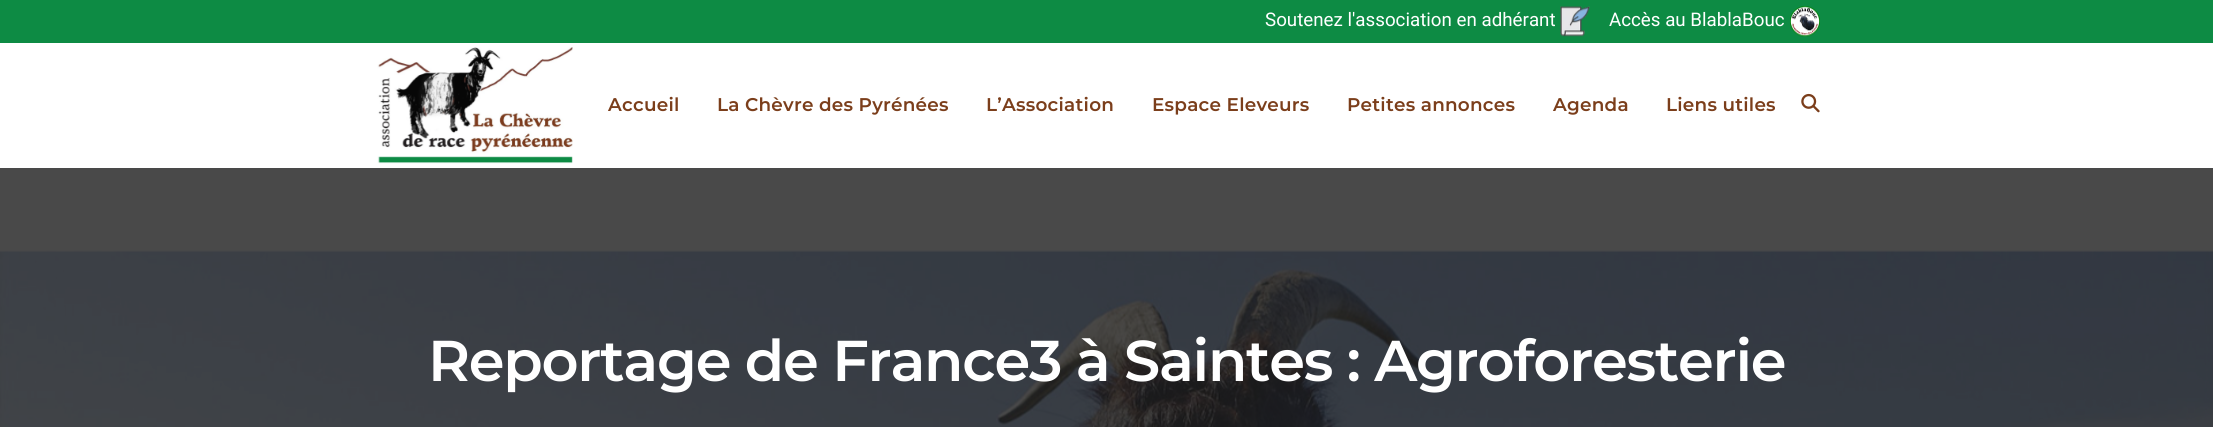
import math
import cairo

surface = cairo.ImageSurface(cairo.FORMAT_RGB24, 2213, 427)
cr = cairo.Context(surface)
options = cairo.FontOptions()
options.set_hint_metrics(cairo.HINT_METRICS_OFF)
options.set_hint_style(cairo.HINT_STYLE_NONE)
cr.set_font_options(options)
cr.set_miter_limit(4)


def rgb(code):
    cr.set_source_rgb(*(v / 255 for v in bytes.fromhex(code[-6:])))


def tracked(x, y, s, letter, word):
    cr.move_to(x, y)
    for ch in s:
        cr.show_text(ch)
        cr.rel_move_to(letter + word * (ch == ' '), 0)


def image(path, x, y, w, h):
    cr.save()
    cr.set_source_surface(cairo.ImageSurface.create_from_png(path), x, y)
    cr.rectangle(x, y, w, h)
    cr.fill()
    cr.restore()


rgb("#ffffff")
cr.paint()
rgb("#494949")
cr.rectangle(0, 168, 2213, 84)
cr.fill()
rgb("#0d8b44")
cr.rectangle(0, 0, 2213, 43)
cr.fill()
image("img/1.png", 1560, 6, 30, 31)
image("img/2.png", 1790, 6, 30, 31)
image("img/3.png", 377, 47, 196, 117)
image("img/4.png", 1801, 93, 19, 20)
image("img/5.png", 0, 250, 2213, 177)
cr.select_font_face("Roboto")
cr.set_font_size(18.75)
rgb("#ffffff")
cr.move_to(1265, 26)
cr.show_text("Soutenez l'association en adhérant")
cr.move_to(1609, 26)
cr.show_text("Accès au BlablaBouc")
cr.select_font_face("Montserrat SemiBold")
cr.set_font_size(18.4)
rgb("#7b3e1b")
for x, y, s in [
    (608, 111, "Accueil"),
    (717, 111, "La Chèvre des Pyrénées"),
    (986, 111, "L’Association"),
    (1152, 111, "Espace Eleveurs"),
    (1347, 111, "Petites annonces"),
    (1553, 111, "Agenda"),
    (1666, 111, "Liens utiles"),
]:
    tracked(x, y, s, 0.25, 0)
cr.set_font_size(57.5)
rgb("#ffffff")
tracked(428, 381, "Reportage de France3 à Saintes : Agroforesterie", -1.25, 0)
surface.write_to_png("page.png")
